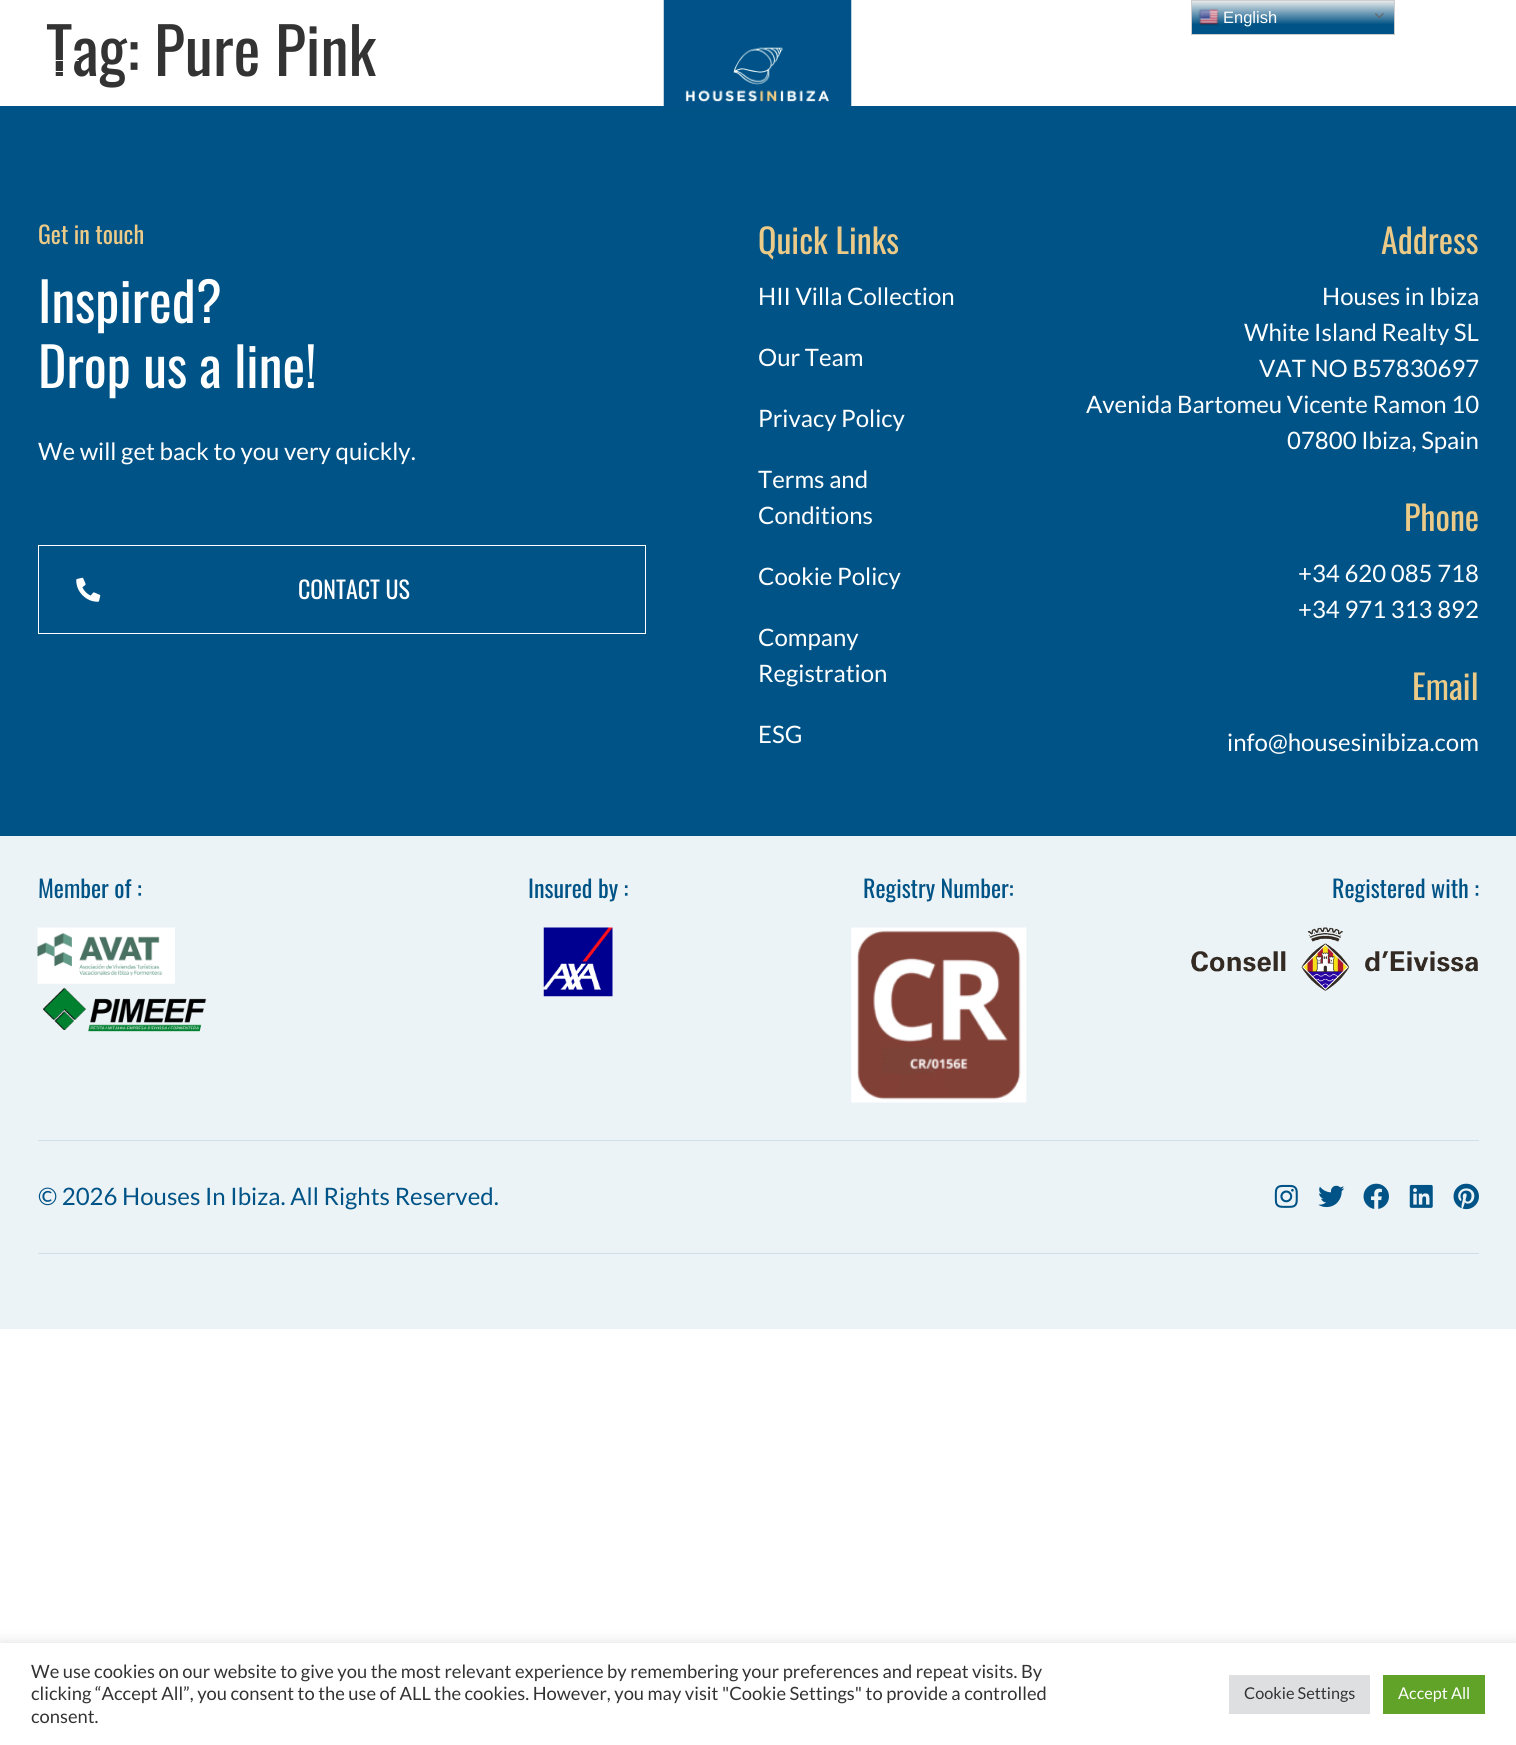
import math
import cairo

surface = cairo.ImageSurface(cairo.FORMAT_RGB24, 1516, 1745)
cr = cairo.Context(surface)
options = cairo.FontOptions()
options.set_hint_metrics(cairo.HINT_METRICS_OFF)
options.set_hint_style(cairo.HINT_STYLE_NONE)
cr.set_font_options(options)
cr.set_miter_limit(4)


def rgb(code):
    cr.set_source_rgb(*(v / 255 for v in bytes.fromhex(code[-6:])))


def rrect(x, y, w, h, r):
    cr.new_sub_path()
    for i, (u, v) in enumerate([(x + w - r, y + h - r), (x + r, y + h - r), (x + r, y + r), (x + w - r, y + r)]):
        cr.arc(u, v, r, i * math.pi / 2, (i + 1) * math.pi / 2)
    cr.close_path()


def soft_shadow(x, y, w, h, r, blur, alpha):
    cr.push_group_with_content(cairo.CONTENT_ALPHA)
    cr.set_operator(cairo.OPERATOR_SOURCE)
    for i in range(15, -16, -2):
        e = blur * i / 6
        if min(w, h) + 2 * e > 0:
            cr.set_source_rgba(0, 0, 0, alpha * math.erfc((i - 1) / 8.5) / 2)
            rrect(x - e, y - e, w + 2 * e, h + 2 * e, max(0, min(r + e + blur * .6, min(w, h) / 2 + e)))
            cr.fill()
    cr.mask(cr.pop_group())


def image(path, x, y, w, h):
    cr.save()
    cr.set_source_surface(cairo.ImageSurface.create_from_png(path), x, y)
    cr.rectangle(x, y, w, h)
    cr.fill()
    cr.restore()


rgb("#ffffff")
cr.paint()
image("img/1.png", 663, 0, 189, 106)
gradient = cairo.LinearGradient(1293, 0, 1293, 35)
gradient.add_color_stop_rgba(0, 0.937, 0.937, 0.937, 1)
gradient.add_color_stop_rgba(0.7, 0, 0.325, 0.525, 1)
cr.set_source(gradient)
cr.rectangle(1192, 1, 202, 33)
cr.fill()
cr.rectangle(1191.5, 0.5, 203, 34)
rgb("#cccccc")
cr.set_line_width(1)
cr.stroke()
image("img/2.png", 1198, 8, 21, 18)
image("img/3.png", 1375, 13, 9, 5)
rgb("#005386")
cr.rectangle(0, 106, 1516, 730)
cr.fill()
cr.rectangle(38.5, 545.5, 607, 88)
rgb("#ffffff")
cr.stroke()
image("img/4.png", 76, 577, 25, 25)
rgb("#ecf3f6")
cr.rectangle(0, 836, 1516, 493)
cr.fill()
image("img/5.png", 37, 927, 138, 57)
image("img/6.png", 42, 987, 165, 45)
image("img/7.png", 543, 927, 70, 70)
image("img/8.png", 851, 927, 176, 176)
image("img/9.png", 1191, 927, 287, 64)
rgb("#cfdfe8")
cr.rectangle(38, 1140, 1441, 1)
cr.fill()
cr.rectangle(38, 1253, 1441, 1)
cr.fill()
image("img/10.png", 1274, 1184, 24, 24)
image("img/11.png", 1318, 1185, 27, 23)
image("img/12.png", 1363, 1183, 26, 26)
image("img/13.png", 1409, 1184, 24, 24)
image("img/14.png", 1453, 1183, 26, 27)
rgb("#acabab")
soft_shadow(0, 1641, 1516, 103, 0, 6, 0.3)
for x, y, w, h, color in [
    (0, 1643, 1516, 102, "#ffffff"),
    (1229, 1675, 141, 39, "#dedfe0"),
    (1383, 1675, 102, 39, "#61a229"),
]:
    rgb(color)
    cr.rectangle(x, y, w, h)
    cr.fill()
cr.select_font_face("Liberation Sans")
cr.set_font_size(16.5)
rgb("#ffffff")
cr.move_to(1223, 23)
cr.show_text("English")
cr.select_font_face("Oswald")
cr.set_font_size(64)
rgb("#333333")
cr.move_to(46, 76)
cr.show_text("Tag: Pure Pink")
rgb("#ffffff")
cr.rectangle(55, 71, 13, 1)
cr.fill()
cr.rectangle(55, 60, 24, 1)
cr.fill()
cr.set_font_size(24)
rgb("#ecca87")
cr.move_to(38, 244)
cr.show_text("Get in touch")
cr.set_font_size(54)
rgb("#ffffff")
cr.move_to(38, 323)
cr.show_text("Inspired?")
cr.move_to(38, 388)
cr.show_text("Drop us a line!")
cr.select_font_face("Lato")
cr.set_font_size(24)
cr.move_to(38, 460)
cr.show_text("We will get back to you very quickly.")
cr.select_font_face("Oswald")
cr.move_to(298, 599)
cr.show_text("CONTACT US")
cr.set_font_size(34)
rgb("#ecca87")
cr.move_to(758, 254)
cr.show_text("Quick Links")
cr.select_font_face("Lato")
cr.set_font_size(24)
rgb("#ffffff")
for x, y, s in [
    (758, 305, "HII Villa Collection"),
    (758, 366, "Our Team"),
    (758, 427, "Privacy Policy"),
    (758, 488, "Terms and"),
    (758, 524, "Conditions"),
    (758, 585, "Cookie Policy"),
    (758, 646, "Company"),
    (758, 682, "Registration"),
    (758, 743, "ESG"),
]:
    cr.move_to(x, y)
    cr.show_text(s)
cr.select_font_face("Oswald")
cr.set_font_size(34)
rgb("#ecca87")
cr.move_to(1381, 254)
cr.show_text("Address")
cr.select_font_face("Lato")
cr.set_font_size(24)
rgb("#ffffff")
for x, y, s in [
    (1322, 305, "Houses in Ibiza"),
    (1244, 341, "White Island Realty SL"),
    (1259, 377, "VAT NO B57830697"),
    (1086, 413, "Avenida Bartomeu Vicente Ramon 10"),
    (1287, 449, "07800 Ibiza, Spain"),
]:
    cr.move_to(x, y)
    cr.show_text(s)
cr.select_font_face("Oswald")
cr.set_font_size(34)
rgb("#ecca87")
cr.move_to(1404, 531)
cr.show_text("Phone")
cr.select_font_face("Lato")
cr.set_font_size(24)
rgb("#ffffff")
cr.move_to(1298, 582)
cr.show_text("+34 620 085 718")
cr.move_to(1298, 618)
cr.show_text("+34 971 313 892")
cr.select_font_face("Oswald")
cr.set_font_size(34)
rgb("#ecca87")
cr.move_to(1412, 700)
cr.show_text("Email")
cr.select_font_face("Lato")
cr.set_font_size(24)
rgb("#ffffff")
cr.move_to(1227, 751)
cr.show_text("info@housesinibiza.com")
cr.select_font_face("Oswald")
rgb("#005386")
for x, y, s in [
    (38, 898, "Member of :"),
    (528, 898, "Insured by :"),
    (863, 898, "Registry Number:"),
    (1332, 898, "Registered with :"),
]:
    cr.move_to(x, y)
    cr.show_text(s)
cr.select_font_face("Lato")
cr.move_to(38, 1205)
cr.show_text("© 2026 Houses In Ibiza. All Rights Reserved.")
cr.set_font_size(18.33)
rgb("#333333")
for x, y, s in [
    (31, 1678, "We use cookies on our website to give you the most relevant experience by remembering your preferences and repeat visits. By"),
    (31, 1700, "clicking “Accept All”, you consent to the use of ALL the cookies. However, you may visit \"Cookie Settings\" to provide a controlled"),
    (31, 1723, "consent."),
]:
    cr.move_to(x, y)
    cr.show_text(s)
cr.set_font_size(16.25)
cr.move_to(1244, 1699)
cr.show_text("Cookie Settings")
rgb("#ffffff")
cr.move_to(1398, 1699)
cr.show_text("Accept All")
surface.write_to_png("page.png")
